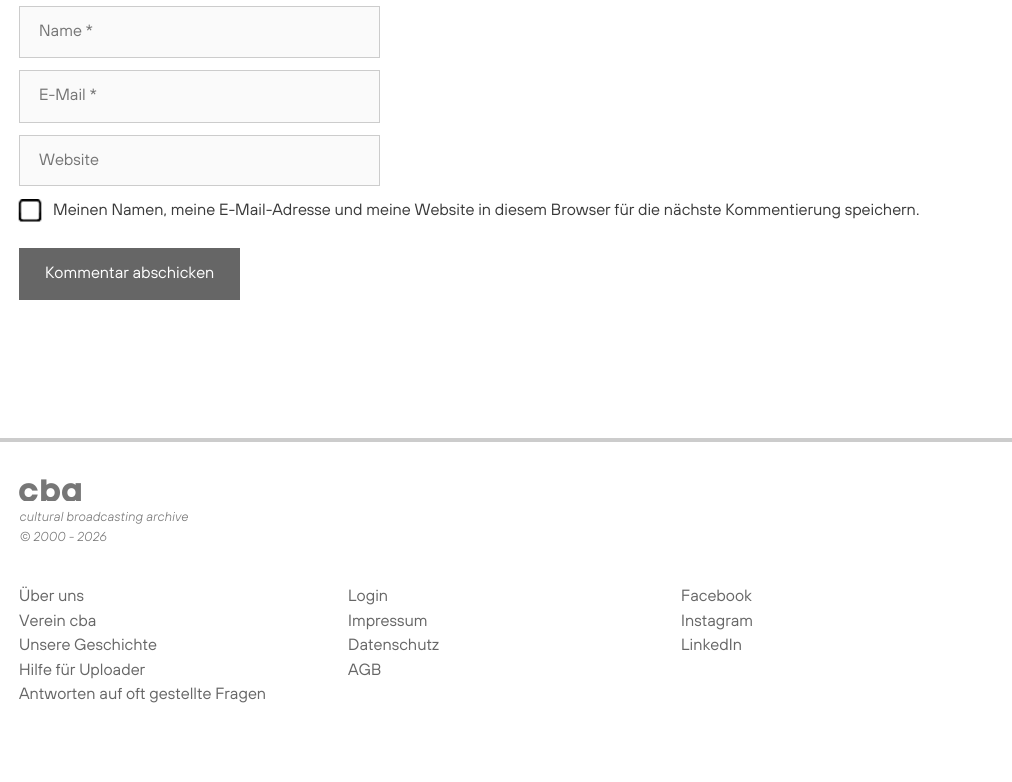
import math
import cairo

surface = cairo.ImageSurface(cairo.FORMAT_RGB24, 1012, 782)
cr = cairo.Context(surface)
options = cairo.FontOptions()
options.set_hint_metrics(cairo.HINT_METRICS_OFF)
options.set_hint_style(cairo.HINT_STYLE_NONE)
cr.set_font_options(options)
cr.set_miter_limit(4)


def rgb(code):
    cr.set_source_rgb(*(v / 255 for v in bytes.fromhex(code[-6:])))


def image(path, x, y, w, h):
    cr.save()
    cr.set_source_surface(cairo.ImageSurface.create_from_png(path), x, y)
    cr.rectangle(x, y, w, h)
    cr.fill()
    cr.restore()


rgb("#ffffff")
cr.paint()
rgb("#fafafa")
cr.rectangle(19.5, 6.5, 360, 51)
cr.fill_preserve()
rgb("#cccccc")
cr.set_line_width(1)
cr.stroke()
rgb("#fafafa")
cr.rectangle(19.5, 70.5, 360, 52)
cr.fill_preserve()
rgb("#cccccc")
cr.stroke()
rgb("#fafafa")
cr.rectangle(19.5, 135.5, 360, 50)
cr.fill_preserve()
rgb("#cccccc")
cr.stroke()
image("img/1.png", 18, 199, 24, 23)
rgb("#666666")
cr.rectangle(19, 248, 221, 52)
cr.fill()
rgb("#cccccc")
cr.rectangle(0, 438, 1012, 4)
cr.fill()
image("img/2.png", 19, 479, 62, 22)
cr.select_font_face("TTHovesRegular")
cr.set_font_size(16.25)
rgb("#757575")
for x, y, s in [
    (39, 36, "Name *"),
    (39, 100, "E-Mail *"),
    (39, 165, "Website"),
]:
    cr.move_to(x, y)
    cr.show_text(s)
rgb("#3a3a3a")
cr.move_to(53, 215)
cr.show_text("Meinen Namen, meine E-Mail-Adresse und meine Website in diesem Browser für die nächste Kommentierung speichern.")
rgb("#ffffff")
cr.move_to(45, 278)
cr.show_text("Kommentar abschicken")
cr.select_font_face("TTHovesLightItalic")
cr.set_font_size(13)
rgb("#757575")
cr.move_to(19, 521)
cr.show_text("cultural broadcasting archive")
cr.move_to(19, 541)
cr.show_text("© 2000 - 2026")
cr.select_font_face("TTHovesRegular")
cr.set_font_size(16.25)
rgb("#666666")
for x, y, s in [
    (19, 601, "Über uns"),
    (19, 626, "Verein cba"),
    (19, 650, "Unsere Geschichte"),
    (19, 675, "Hilfe für Uploader"),
    (19, 699, "Antworten auf oft gestellte Fragen"),
    (348, 601, "Login"),
    (348, 626, "Impressum"),
    (348, 650, "Datenschutz"),
    (348, 675, "AGB"),
    (681, 601, "Facebook"),
    (681, 626, "Instagram"),
    (681, 650, "LinkedIn"),
]:
    cr.move_to(x, y)
    cr.show_text(s)
surface.write_to_png("page.png")
